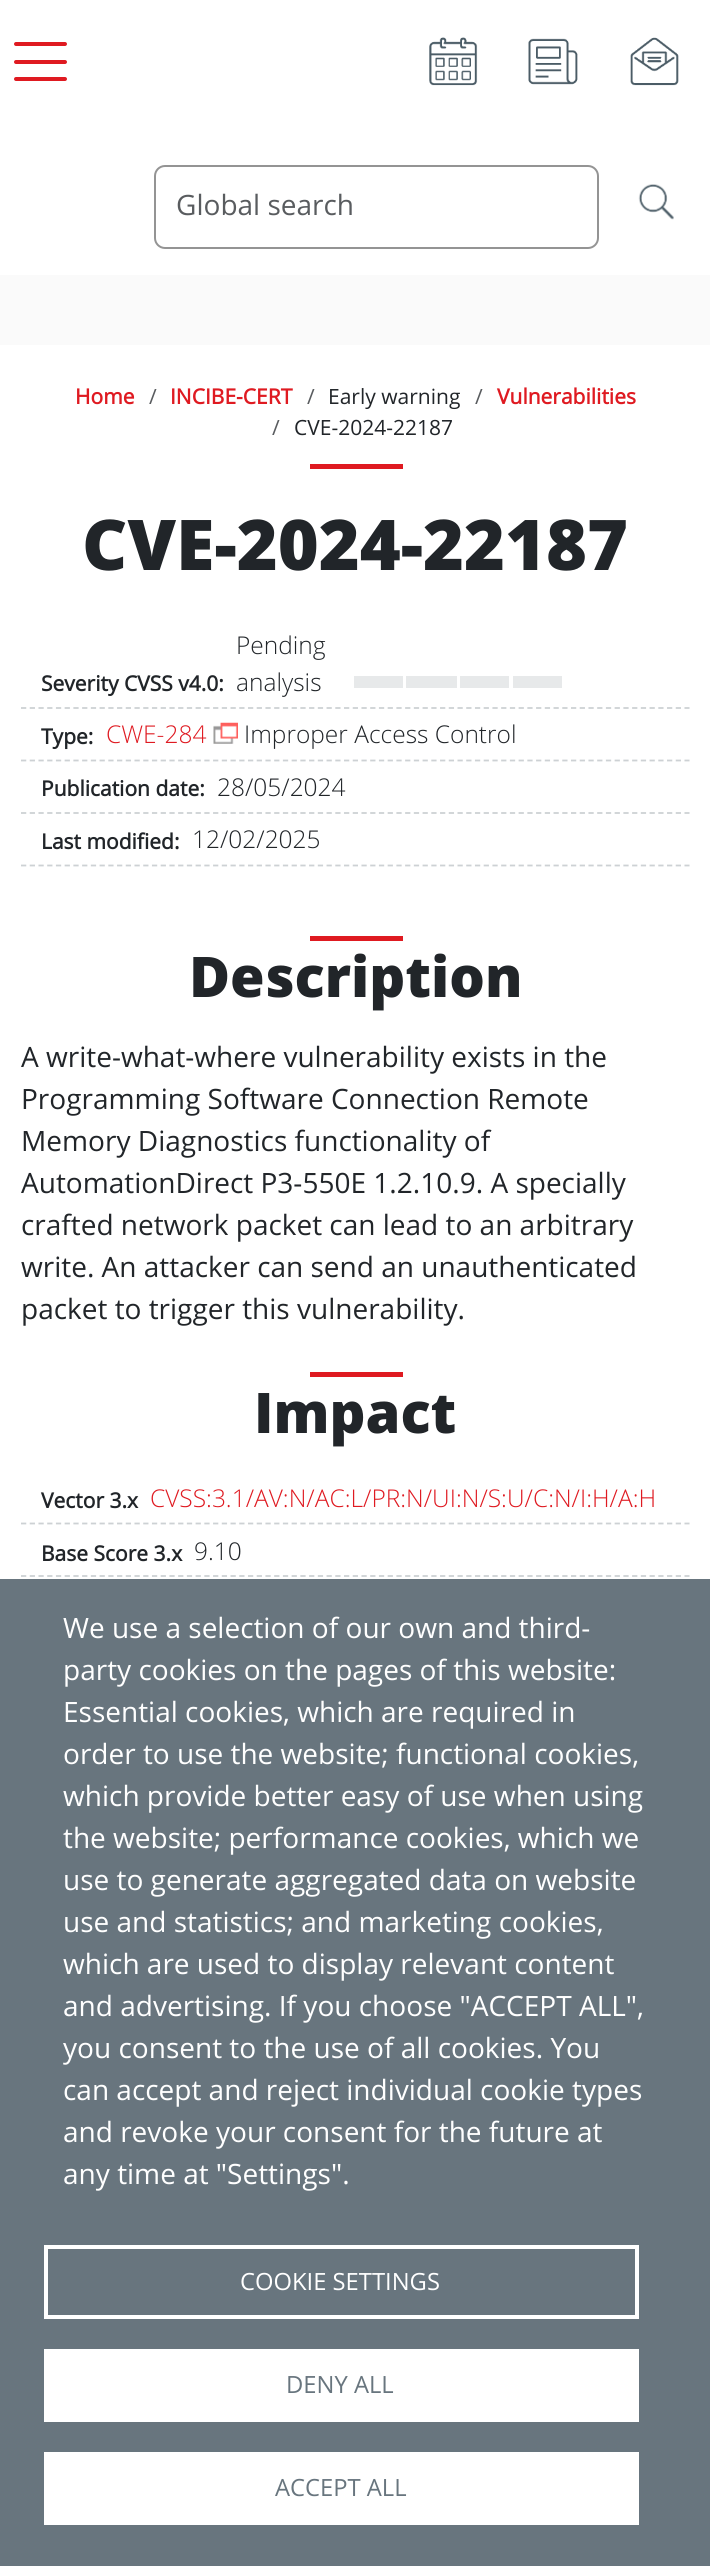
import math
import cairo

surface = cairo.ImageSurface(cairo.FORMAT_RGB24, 710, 2566)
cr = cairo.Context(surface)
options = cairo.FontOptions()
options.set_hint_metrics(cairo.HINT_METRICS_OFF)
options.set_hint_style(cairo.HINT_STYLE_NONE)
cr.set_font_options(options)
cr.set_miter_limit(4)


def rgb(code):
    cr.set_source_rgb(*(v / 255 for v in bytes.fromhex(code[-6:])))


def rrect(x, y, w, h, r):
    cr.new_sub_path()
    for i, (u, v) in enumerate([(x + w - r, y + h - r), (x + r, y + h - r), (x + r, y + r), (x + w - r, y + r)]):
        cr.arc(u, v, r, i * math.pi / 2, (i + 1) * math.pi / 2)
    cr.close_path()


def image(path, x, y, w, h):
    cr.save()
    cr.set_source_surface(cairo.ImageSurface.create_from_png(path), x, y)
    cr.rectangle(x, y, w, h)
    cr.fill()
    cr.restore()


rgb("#fafafa")
cr.paint()
rgb("#ffffff")
cr.rectangle(0, 0, 710, 275)
cr.fill()
rgb("#df1a21")
rrect(14, 42, 53, 4, 2)
cr.fill()
rrect(14, 60, 53, 4, 2)
cr.fill()
rrect(14, 77, 53, 4, 2)
cr.fill()
image("img/1.png", 429, 37, 49, 49)
image("img/2.png", 528, 38, 50, 47)
image("img/3.png", 630, 37, 49, 49)
rrect(155, 166, 443, 82, 10)
rgb("#949494")
cr.stroke()
image("img/4.png", 638, 184, 36, 36)
rgb("#ffffff")
cr.rectangle(0, 345, 710, 1234)
cr.fill()
rgb("#df1a21")
cr.rectangle(310, 464, 93, 5)
cr.fill()
cr.new_path()
cr.move_to(21, 708)
cr.line_to(689.5, 708)
rgb("#cdd1d4")
cr.set_line_width(1.8)
cr.set_dash([5.25, 3.48])
cr.stroke()
for x, y, w, h, color in [
    (354, 676, 49, 12, "#e7e9ea"),
    (406, 676, 51, 12, "#e7e9ea"),
    (460, 676, 49, 12, "#e7e9ea"),
    (513, 676, 49, 12, "#e7e9ea"),
]:
    rgb(color)
    cr.rectangle(x, y, w, h)
    cr.fill()
cr.new_path()
cr.move_to(21, 760.5)
cr.line_to(689.5, 760.5)
rgb("#cdd1d4")
cr.stroke()
image("img/5.png", 213, 722, 25, 22)
cr.new_path()
cr.move_to(21, 813)
cr.line_to(689.5, 813)
cr.stroke()
cr.new_path()
cr.move_to(21, 865.5)
cr.line_to(689.5, 865.5)
cr.stroke()
rgb("#df1a21")
cr.rectangle(310, 936, 93, 5)
cr.fill()
cr.rectangle(310, 1372, 93, 5)
cr.fill()
cr.new_path()
cr.move_to(21, 1523.5)
cr.line_to(689.5, 1523.5)
rgb("#cdd1d4")
cr.stroke()
cr.new_path()
cr.move_to(21, 1576)
cr.line_to(689.5, 1576)
cr.stroke()
rgb("#68757e")
cr.rectangle(0, 1579, 710, 987)
cr.fill()
cr.rectangle(46, 2247, 591, 70)
rgb("#ffffff")
cr.set_line_width(4)
cr.set_dash([])
cr.stroke()
cr.rectangle(44, 2349, 595, 73)
cr.fill()
cr.rectangle(44, 2452, 595, 73)
cr.fill()
cr.select_font_face("Open Sans")
cr.set_font_size(28)
rgb("#595c5f")
cr.move_to(176, 215)
cr.show_text("Global search")
cr.select_font_face("Open Sans", cairo.FONT_SLANT_NORMAL, cairo.FONT_WEIGHT_BOLD)
cr.set_font_size(21)
rgb("#df1a21")
cr.move_to(75, 404)
cr.show_text("Home")
cr.select_font_face("Open Sans")
rgb("#595c5f")
cr.move_to(149, 404)
cr.show_text("/")
cr.select_font_face("Open Sans", cairo.FONT_SLANT_NORMAL, cairo.FONT_WEIGHT_BOLD)
rgb("#df1a21")
cr.move_to(170, 404)
cr.show_text("INCIBE-CERT")
cr.select_font_face("Open Sans")
rgb("#595c5f")
cr.move_to(307, 404)
cr.show_text("/")
rgb("#212529")
cr.move_to(328, 404)
cr.show_text("Early warning")
rgb("#595c5f")
cr.move_to(475, 404)
cr.show_text("/")
cr.select_font_face("Open Sans", cairo.FONT_SLANT_NORMAL, cairo.FONT_WEIGHT_BOLD)
rgb("#df1a21")
cr.move_to(497, 404)
cr.show_text("Vulnerabilities")
cr.select_font_face("Open Sans")
rgb("#595c5f")
cr.move_to(272, 435)
cr.show_text("/")
rgb("#212529")
cr.move_to(294, 435)
cr.show_text("CVE-2024-22187")
cr.select_font_face("Open Sans ExtraBold")
cr.set_font_size(70)
cr.move_to(82, 570)
cr.show_text("CVE-2024-22187")
cr.select_font_face("Open Sans", cairo.FONT_SLANT_NORMAL, cairo.FONT_WEIGHT_BOLD)
cr.set_font_size(21)
cr.move_to(41, 691)
cr.show_text("Severity CVSS v4.0:")
cr.select_font_face("Open Sans Light")
cr.set_font_size(24.5)
cr.move_to(236, 654)
cr.show_text("Pending")
cr.move_to(236, 691)
cr.show_text("analysis")
cr.select_font_face("Open Sans", cairo.FONT_SLANT_NORMAL, cairo.FONT_WEIGHT_BOLD)
cr.set_font_size(21)
cr.move_to(41, 744)
cr.show_text("Type:")
cr.select_font_face("Open Sans Light")
cr.set_font_size(24.5)
rgb("#df1a21")
cr.move_to(106, 743)
cr.show_text("CWE-284")
rgb("#212529")
cr.move_to(244, 743)
cr.show_text("Improper Access Control")
cr.select_font_face("Open Sans", cairo.FONT_SLANT_NORMAL, cairo.FONT_WEIGHT_BOLD)
cr.set_font_size(21)
cr.move_to(41, 796)
cr.show_text("Publication date:")
cr.select_font_face("Open Sans Light")
cr.set_font_size(24.5)
cr.move_to(217, 796)
cr.show_text("28/05/2024")
cr.select_font_face("Open Sans", cairo.FONT_SLANT_NORMAL, cairo.FONT_WEIGHT_BOLD)
cr.set_font_size(21)
cr.move_to(41, 849)
cr.show_text("Last modified:")
cr.select_font_face("Open Sans Light")
cr.set_font_size(24.5)
cr.move_to(192, 848)
cr.show_text("12/02/2025")
cr.select_font_face("Open Sans ExtraBold")
cr.set_font_size(56)
cr.move_to(189, 997)
cr.show_text("Description")
cr.select_font_face("Open Sans")
cr.set_font_size(28)
for x, y, s in [
    (21, 1067, "A write-what-where vulnerability exists in the"),
    (21, 1109, "Programming Software Connection Remote"),
    (21, 1151, "Memory Diagnostics functionality of"),
    (21, 1193, "AutomationDirect P3-550E 1.2.10.9. A specially"),
    (21, 1235, "crafted network packet can lead to an arbitrary"),
    (21, 1277, "write. An attacker can send an unauthenticated"),
    (21, 1319, "packet to trigger this vulnerability."),
]:
    cr.move_to(x, y)
    cr.show_text(s)
cr.select_font_face("Open Sans ExtraBold")
cr.set_font_size(56)
cr.move_to(254, 1433)
cr.show_text("Impact")
cr.select_font_face("Open Sans", cairo.FONT_SLANT_NORMAL, cairo.FONT_WEIGHT_BOLD)
cr.set_font_size(21)
cr.move_to(41, 1508)
cr.show_text("Vector 3.x")
cr.select_font_face("Open Sans Light")
cr.set_font_size(24.5)
rgb("#df1a21")
cr.move_to(150, 1507)
cr.show_text("CVSS:3.1/AV:N/AC:L/PR:N/UI:N/S:U/C:N/I:H/A:H")
cr.select_font_face("Open Sans", cairo.FONT_SLANT_NORMAL, cairo.FONT_WEIGHT_BOLD)
cr.set_font_size(21)
rgb("#212529")
cr.move_to(41, 1561)
cr.show_text("Base Score 3.x")
cr.select_font_face("Open Sans Light")
cr.set_font_size(24.5)
cr.move_to(194, 1560)
cr.show_text("9.10")
cr.select_font_face("Open Sans")
cr.set_font_size(28)
rgb("#ffffff")
for x, y, s in [
    (63, 1638, "We use a selection of our own and third-"),
    (63, 1680, "party cookies on the pages of this website:"),
    (63, 1722, "Essential cookies, which are required in"),
    (63, 1764, "order to use the website; functional cookies,"),
    (63, 1806, "which provide better easy of use when using"),
    (63, 1848, "the website; performance cookies, which we"),
    (63, 1890, "use to generate aggregated data on website"),
    (63, 1932, "use and statistics; and marketing cookies,"),
    (63, 1974, "which are used to display relevant content"),
    (63, 2016, "and advertising. If you choose \"ACCEPT ALL\","),
    (63, 2058, "you consent to the use of all cookies. You"),
    (63, 2100, "can accept and reject individual cookie types"),
    (63, 2142, "and revoke your consent for the future at"),
    (63, 2184, "any time at \"Settings\"."),
]:
    cr.move_to(x, y)
    cr.show_text(s)
cr.set_font_size(23.75)
cr.move_to(240, 2290)
cr.show_text("COOKIE SETTINGS")
rgb("#68757e")
cr.move_to(286, 2393)
cr.show_text("DENY ALL")
cr.move_to(275, 2496)
cr.show_text("ACCEPT ALL")
surface.write_to_png("page.png")
